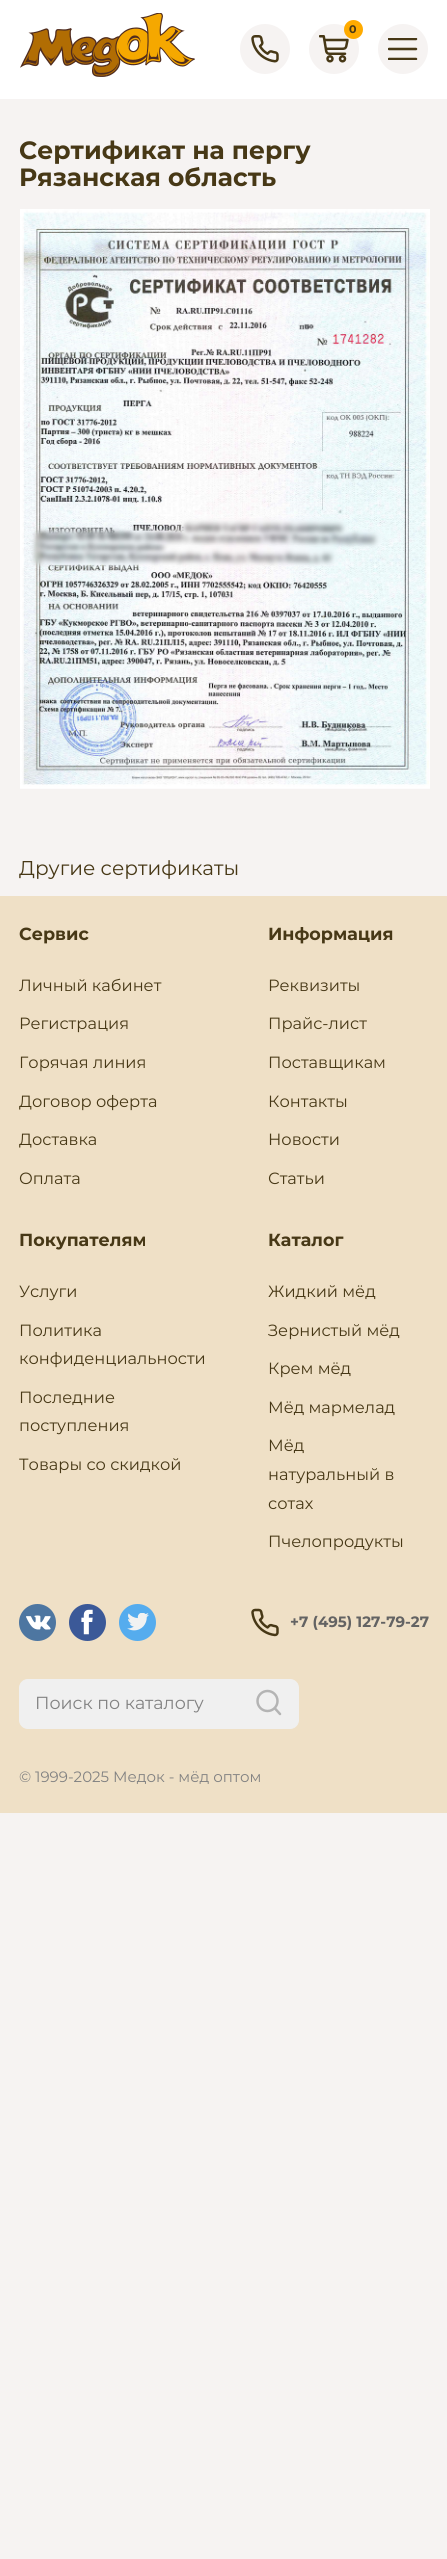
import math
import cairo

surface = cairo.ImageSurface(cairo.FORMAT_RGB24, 447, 2559)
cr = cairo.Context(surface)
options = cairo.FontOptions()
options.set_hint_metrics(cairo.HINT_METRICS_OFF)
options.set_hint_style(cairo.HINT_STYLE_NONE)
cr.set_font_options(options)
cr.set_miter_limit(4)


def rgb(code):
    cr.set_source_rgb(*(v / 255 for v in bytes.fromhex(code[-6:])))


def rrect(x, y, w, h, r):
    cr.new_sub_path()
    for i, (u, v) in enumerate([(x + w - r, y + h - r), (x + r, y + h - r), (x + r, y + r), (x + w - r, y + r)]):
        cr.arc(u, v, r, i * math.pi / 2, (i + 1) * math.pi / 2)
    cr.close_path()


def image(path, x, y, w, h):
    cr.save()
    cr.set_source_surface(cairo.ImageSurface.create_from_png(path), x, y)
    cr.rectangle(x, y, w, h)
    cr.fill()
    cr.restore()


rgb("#f6f3f2")
cr.paint()
rgb("#ffffff")
cr.rectangle(0, 0, 447, 99)
cr.fill()
image("img/1.png", 20, 13, 175, 64)
rgb("#f6f3f2")
cr.arc(265, 49, 25, 0, 2 * math.pi)
cr.fill()
image("img/2.png", 251, 35, 28, 28)
cr.arc(334, 49, 25, 0, 2 * math.pi)
cr.fill()
image("img/3.png", 319, 35, 30, 28)
rgb("#ffab00")
cr.arc(353.5, 29.5, 9.5, 0, 2 * math.pi)
cr.fill()
rgb("#f6f3f2")
cr.arc(403, 49, 25, 0, 2 * math.pi)
cr.fill()
cr.save()
cr.rectangle(388, 38, 30, 22)
cr.clip()
cr.new_path()
cr.move_to(389, 39)
cr.line_to(416, 39)
cr.move_to(389, 49)
cr.line_to(416, 49)
cr.move_to(389, 59)
cr.line_to(416, 59)
rgb("#473816")
cr.set_line_width(2.5)
cr.set_line_cap(cairo.LINE_CAP_ROUND)
cr.set_line_join(cairo.LINE_JOIN_ROUND)
cr.stroke()
cr.restore()
image("img/4.png", 20, 209, 410, 580)
rgb("#efe0c6")
cr.rectangle(0, 896, 447, 917)
cr.fill()
rgb("#4d76a1")
cr.arc(37.5, 1622.5, 18.5, 0, 2 * math.pi)
cr.fill()
image("img/5.png", 26, 1615, 25, 15)
rgb("#3b5998")
cr.arc(87.5, 1622.5, 18.5, 0, 2 * math.pi)
cr.fill()
image("img/6.png", 81, 1609, 12, 26)
rgb("#55acee")
cr.arc(137.5, 1622.5, 18.5, 0, 2 * math.pi)
cr.fill()
image("img/7.png", 127, 1613, 22, 18)
image("img/8.png", 251, 1608, 28, 29)
rgb("#f0f0f0")
rrect(19.5, 1679.5, 279, 49, 8.5)
cr.fill_preserve()
cr.set_line_width(1)
cr.stroke()
cr.arc(267.5, 1701, 10, 0, 2 * math.pi)
rgb("#b4b4b4")
cr.set_line_width(2.5)
cr.stroke()
cr.new_path()
cr.move_to(280, 1714)
cr.line_to(275, 1708.5)
cr.set_line_cap(cairo.LINE_CAP_ROUND)
cr.set_line_join(cairo.LINE_JOIN_ROUND)
cr.stroke()
cr.select_font_face("Montserrat", cairo.FONT_SLANT_NORMAL, cairo.FONT_WEIGHT_BOLD)
cr.set_font_size(11)
rgb("#473816")
cr.move_to(349, 33)
cr.show_text("0")
cr.set_font_size(25)
cr.move_to(19, 159)
cr.show_text("Сертификат на пергу")
cr.move_to(19, 186)
cr.show_text("Рязанская область")
cr.select_font_face("Montserrat")
cr.set_font_size(20)
cr.move_to(19, 875)
cr.show_text("Другие сертификаты")
cr.select_font_face("Montserrat", cairo.FONT_SLANT_NORMAL, cairo.FONT_WEIGHT_BOLD)
cr.set_font_size(17.5)
cr.move_to(19, 940)
cr.show_text("Сервис")
cr.select_font_face("Montserrat")
cr.set_font_size(16.25)
for x, y, s in [
    (19, 991, "Личный кабинет"),
    (19, 1029, "Регистрация"),
    (19, 1068, "Горячая линия"),
    (19, 1107, "Договор оферта"),
    (19, 1145, "Доставка"),
    (19, 1184, "Оплата"),
]:
    cr.move_to(x, y)
    cr.show_text(s)
cr.select_font_face("Montserrat", cairo.FONT_SLANT_NORMAL, cairo.FONT_WEIGHT_BOLD)
cr.set_font_size(17.5)
cr.move_to(268, 940)
cr.show_text("Информация")
cr.select_font_face("Montserrat")
cr.set_font_size(16.25)
for x, y, s in [
    (268, 991, "Реквизиты"),
    (268, 1029, "Прайс-лист"),
    (268, 1068, "Поставщикам"),
    (268, 1107, "Контакты"),
    (268, 1145, "Новости"),
    (268, 1184, "Статьи"),
]:
    cr.move_to(x, y)
    cr.show_text(s)
cr.select_font_face("Montserrat", cairo.FONT_SLANT_NORMAL, cairo.FONT_WEIGHT_BOLD)
cr.set_font_size(17.5)
cr.move_to(19, 1246)
cr.show_text("Покупателям")
cr.select_font_face("Montserrat")
cr.set_font_size(16.25)
for x, y, s in [
    (19, 1297, "Услуги"),
    (19, 1336, "Политика"),
    (19, 1364, "конфиденциальности"),
    (19, 1403, "Последние"),
    (19, 1431, "поступления"),
    (19, 1470, "Товары со скидкой"),
]:
    cr.move_to(x, y)
    cr.show_text(s)
cr.select_font_face("Montserrat", cairo.FONT_SLANT_NORMAL, cairo.FONT_WEIGHT_BOLD)
cr.set_font_size(17.5)
cr.move_to(268, 1246)
cr.show_text("Каталог")
cr.select_font_face("Montserrat")
cr.set_font_size(16.25)
for x, y, s in [
    (268, 1297, "Жидкий мёд"),
    (268, 1336, "Зернистый мёд"),
    (268, 1374, "Крем мёд"),
    (268, 1413, "Мёд мармелад"),
    (268, 1451, "Мёд"),
    (268, 1480, "натуральный в"),
    (268, 1509, "сотах"),
    (268, 1547, "Пчелопродукты"),
]:
    cr.move_to(x, y)
    cr.show_text(s)
cr.select_font_face("Montserrat", cairo.FONT_SLANT_NORMAL, cairo.FONT_WEIGHT_BOLD)
cr.set_font_size(15)
rgb("#636363")
cr.move_to(290, 1627)
cr.show_text("+7 (495) 127-79-27")
cr.select_font_face("Montserrat")
cr.set_font_size(17.5)
rgb("#828282")
cr.move_to(35, 1709)
cr.show_text("Поиск по каталогу")
cr.set_font_size(15)
cr.move_to(19, 1782)
cr.show_text("© 1999-2025 Медок - мёд оптом")
surface.write_to_png("page.png")
